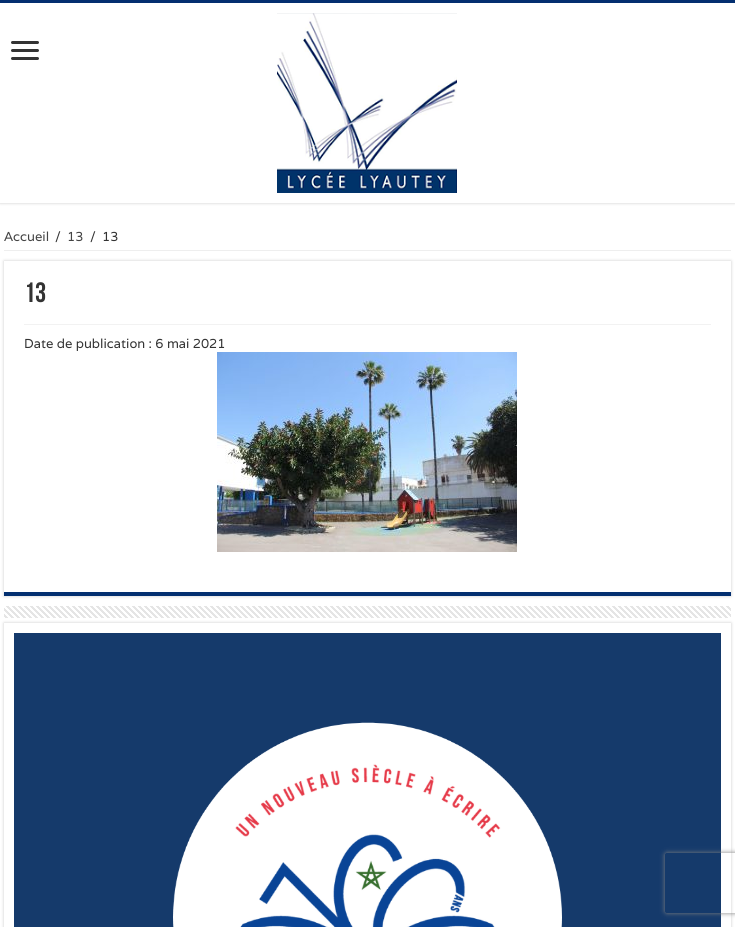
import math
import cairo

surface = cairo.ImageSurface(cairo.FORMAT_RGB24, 735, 927)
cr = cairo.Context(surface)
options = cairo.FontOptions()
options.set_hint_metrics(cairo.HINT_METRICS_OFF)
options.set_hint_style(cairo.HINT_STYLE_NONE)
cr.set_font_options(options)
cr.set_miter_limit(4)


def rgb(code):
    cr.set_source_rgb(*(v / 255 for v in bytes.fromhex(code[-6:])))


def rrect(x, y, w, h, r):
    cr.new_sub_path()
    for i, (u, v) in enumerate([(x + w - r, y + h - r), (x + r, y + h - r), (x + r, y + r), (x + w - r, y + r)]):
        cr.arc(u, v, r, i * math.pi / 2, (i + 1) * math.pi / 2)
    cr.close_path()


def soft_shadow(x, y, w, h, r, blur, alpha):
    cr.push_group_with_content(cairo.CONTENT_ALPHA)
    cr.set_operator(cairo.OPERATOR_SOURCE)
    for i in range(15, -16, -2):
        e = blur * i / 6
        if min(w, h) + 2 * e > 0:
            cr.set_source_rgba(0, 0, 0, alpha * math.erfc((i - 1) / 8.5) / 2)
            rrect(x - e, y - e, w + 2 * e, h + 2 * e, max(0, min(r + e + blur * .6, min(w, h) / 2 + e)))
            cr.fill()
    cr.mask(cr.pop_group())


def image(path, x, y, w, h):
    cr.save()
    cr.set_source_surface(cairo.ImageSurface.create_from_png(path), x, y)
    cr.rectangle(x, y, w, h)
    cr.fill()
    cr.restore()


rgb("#ffffff")
cr.paint()
cr.save()
cr.rectangle(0, 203, 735, 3)
cr.clip()
rgb("#cacaca")
soft_shadow(0, 0, 735, 203, 0, 1.5, 1)
cr.restore()
rgb("#032f70")
cr.rectangle(0, 0, 735, 3)
cr.fill()
rgb("#333333")
rrect(11, 41, 28, 3, 1.5)
cr.fill()
rrect(11, 49, 28, 3, 1.5)
cr.fill()
rrect(11, 57, 28, 3, 1.5)
cr.fill()
image("img/1.png", 277, 13, 180, 180)
rgb("#eeeeee")
cr.rectangle(4, 250, 727, 1)
cr.fill()
cr.save()
cr.set_fill_rule(cairo.FILL_RULE_EVEN_ODD)
cr.new_path()
cr.move_to(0, 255)
cr.line_to(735, 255)
cr.line_to(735, 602)
cr.line_to(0, 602)
cr.close_path()
cr.move_to(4, 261)
cr.line_to(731, 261)
cr.line_to(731, 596)
cr.line_to(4, 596)
cr.close_path()
cr.clip()
rgb("#cacaca")
soft_shadow(4, 261, 727, 335, 0, 1.5, 1)
cr.restore()
rgb("#032f70")
cr.rectangle(4, 592, 727, 4)
cr.fill()
rgb("#f2f2f2")
cr.rectangle(24, 324, 687, 1)
cr.fill()
image("img/2.png", 217, 352, 300, 200)
cr.save()
cr.set_fill_rule(cairo.FILL_RULE_EVEN_ODD)
cr.new_path()
cr.move_to(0, 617)
cr.line_to(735, 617)
cr.line_to(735, 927)
cr.line_to(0, 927)
cr.close_path()
cr.move_to(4, 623)
cr.line_to(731, 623)
cr.line_to(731, 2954)
cr.line_to(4, 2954)
cr.close_path()
cr.clip()
rgb("#cacaca")
soft_shadow(4, 623, 727, 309, 0, 1.5, 1)
cr.restore()
image("img/3.png", 4, 606, 727, 12)
image("img/4.png", 14, 633, 707, 294)
cr.save()
cr.set_fill_rule(cairo.FILL_RULE_EVEN_ODD)
cr.new_path()
cr.move_to(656, 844)
cr.line_to(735, 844)
cr.line_to(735, 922)
cr.line_to(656, 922)
cr.close_path()
cr.move_to(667, 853)
cr.line_to(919, 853)
cr.curve_to(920, 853, 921, 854, 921, 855)
cr.line_to(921, 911)
cr.curve_to(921, 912, 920, 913, 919, 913)
cr.line_to(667, 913)
cr.curve_to(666, 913, 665, 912, 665, 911)
cr.line_to(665, 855)
cr.curve_to(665, 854, 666, 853, 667, 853)
cr.close_path()
cr.clip()
rgb("#808080")
soft_shadow(665, 853, 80, 60, 2, 2.5, 1)
cr.restore()
cr.select_font_face("Varela")
cr.set_font_size(13)
rgb("#444444")
cr.move_to(4, 241)
cr.show_text("Accueil")
rgb("#333333")
cr.move_to(55, 241)
cr.show_text("/")
rgb("#444444")
cr.move_to(67, 241)
cr.show_text("13")
rgb("#333333")
cr.move_to(90, 241)
cr.show_text("/")
cr.move_to(102, 241)
cr.show_text("13")
cr.select_font_face("Bebas Neue", cairo.FONT_SLANT_NORMAL, cairo.FONT_WEIGHT_BOLD)
cr.set_font_size(28)
cr.move_to(24, 302)
cr.show_text("13")
cr.select_font_face("Varela")
cr.set_font_size(13)
cr.move_to(24, 348)
cr.show_text("Date de publication : 6 mai 2021")
surface.write_to_png("page.png")
